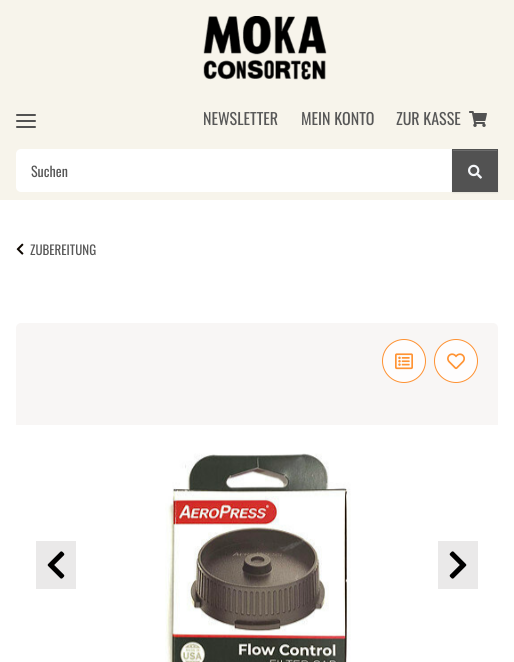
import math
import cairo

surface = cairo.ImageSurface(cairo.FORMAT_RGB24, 514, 662)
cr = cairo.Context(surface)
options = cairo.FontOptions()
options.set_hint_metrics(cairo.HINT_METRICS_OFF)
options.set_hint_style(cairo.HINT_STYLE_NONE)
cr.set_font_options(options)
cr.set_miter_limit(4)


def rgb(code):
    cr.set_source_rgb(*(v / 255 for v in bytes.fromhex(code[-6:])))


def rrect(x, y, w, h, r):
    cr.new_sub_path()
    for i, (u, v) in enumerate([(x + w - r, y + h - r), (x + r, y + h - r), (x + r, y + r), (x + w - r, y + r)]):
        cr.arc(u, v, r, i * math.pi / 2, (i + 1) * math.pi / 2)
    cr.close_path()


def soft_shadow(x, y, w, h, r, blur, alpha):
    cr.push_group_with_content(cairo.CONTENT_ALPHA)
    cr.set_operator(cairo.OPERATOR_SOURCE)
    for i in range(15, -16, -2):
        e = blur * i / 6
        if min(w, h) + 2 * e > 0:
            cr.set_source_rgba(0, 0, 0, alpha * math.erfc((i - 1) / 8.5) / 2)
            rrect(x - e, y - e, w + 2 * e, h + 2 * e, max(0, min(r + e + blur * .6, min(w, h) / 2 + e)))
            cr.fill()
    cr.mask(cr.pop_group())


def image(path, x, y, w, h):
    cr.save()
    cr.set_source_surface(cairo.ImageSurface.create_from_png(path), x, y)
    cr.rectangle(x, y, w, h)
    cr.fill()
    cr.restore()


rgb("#ffffff")
cr.paint()
rgb("#f7f4eb")
cr.rectangle(0, 0, 514, 200)
cr.fill()
image("img/1.png", 203, 16, 124, 64)
rgb("#525252")
rrect(16, 120, 20, 2, 1)
cr.fill()
rrect(16, 114, 20, 2, 1)
cr.fill()
rrect(16, 126, 20, 2, 1)
cr.fill()
image("img/2.png", 469, 111, 18, 16)
rgb("#ffffff")
rrect(16, 149, 482, 43, 5)
cr.fill()
rgb("#000000")
soft_shadow(452, 150, 46, 43, 0, 0.5, 0.07)
rgb("#525252")
cr.rectangle(452, 149, 46, 43)
cr.fill()
rgb("#6c6c6c")
cr.rectangle(453, 150, 44, 1)
cr.fill()
image("img/3.png", 468, 164, 14, 15)
image("img/4.png", 16, 243, 8, 12)
rgb("#f8f6f5")
rrect(16, 323, 482, 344, 5)
cr.fill()
image("img/5.png", 16, 425, 482, 237)
rgb("#eae9e9")
cr.rectangle(36, 541, 40, 48)
cr.fill()
image("img/6.png", 47, 551, 18, 28)
cr.rectangle(438, 541, 40, 48)
cr.fill()
image("img/7.png", 449, 551, 18, 28)
rgb("#fefdfd")
cr.arc(404, 361, 21.5, 0, 2 * math.pi)
cr.fill_preserve()
rgb("#fe9131")
cr.set_line_width(1)
cr.stroke()
image("img/8.png", 395, 353, 18, 17)
rgb("#fefdfd")
cr.arc(456, 361, 21.5, 0, 2 * math.pi)
cr.fill_preserve()
rgb("#fe9131")
cr.stroke()
image("img/9.png", 447, 353, 18, 17)
cr.select_font_face("Oswald")
cr.set_font_size(16)
rgb("#575757")
for x, y, s in [
    (203, 125, "NEWSLETTER"),
    (301, 125, "MEIN KONTO"),
    (396, 125, "ZUR KASSE"),
]:
    cr.move_to(x, y)
    cr.show_text(s)
cr.set_font_size(14)
cr.move_to(31, 177)
cr.show_text("Suchen")
cr.set_font_size(13)
cr.move_to(30, 255)
cr.show_text("ZUBEREITUNG")
surface.write_to_png("page.png")
